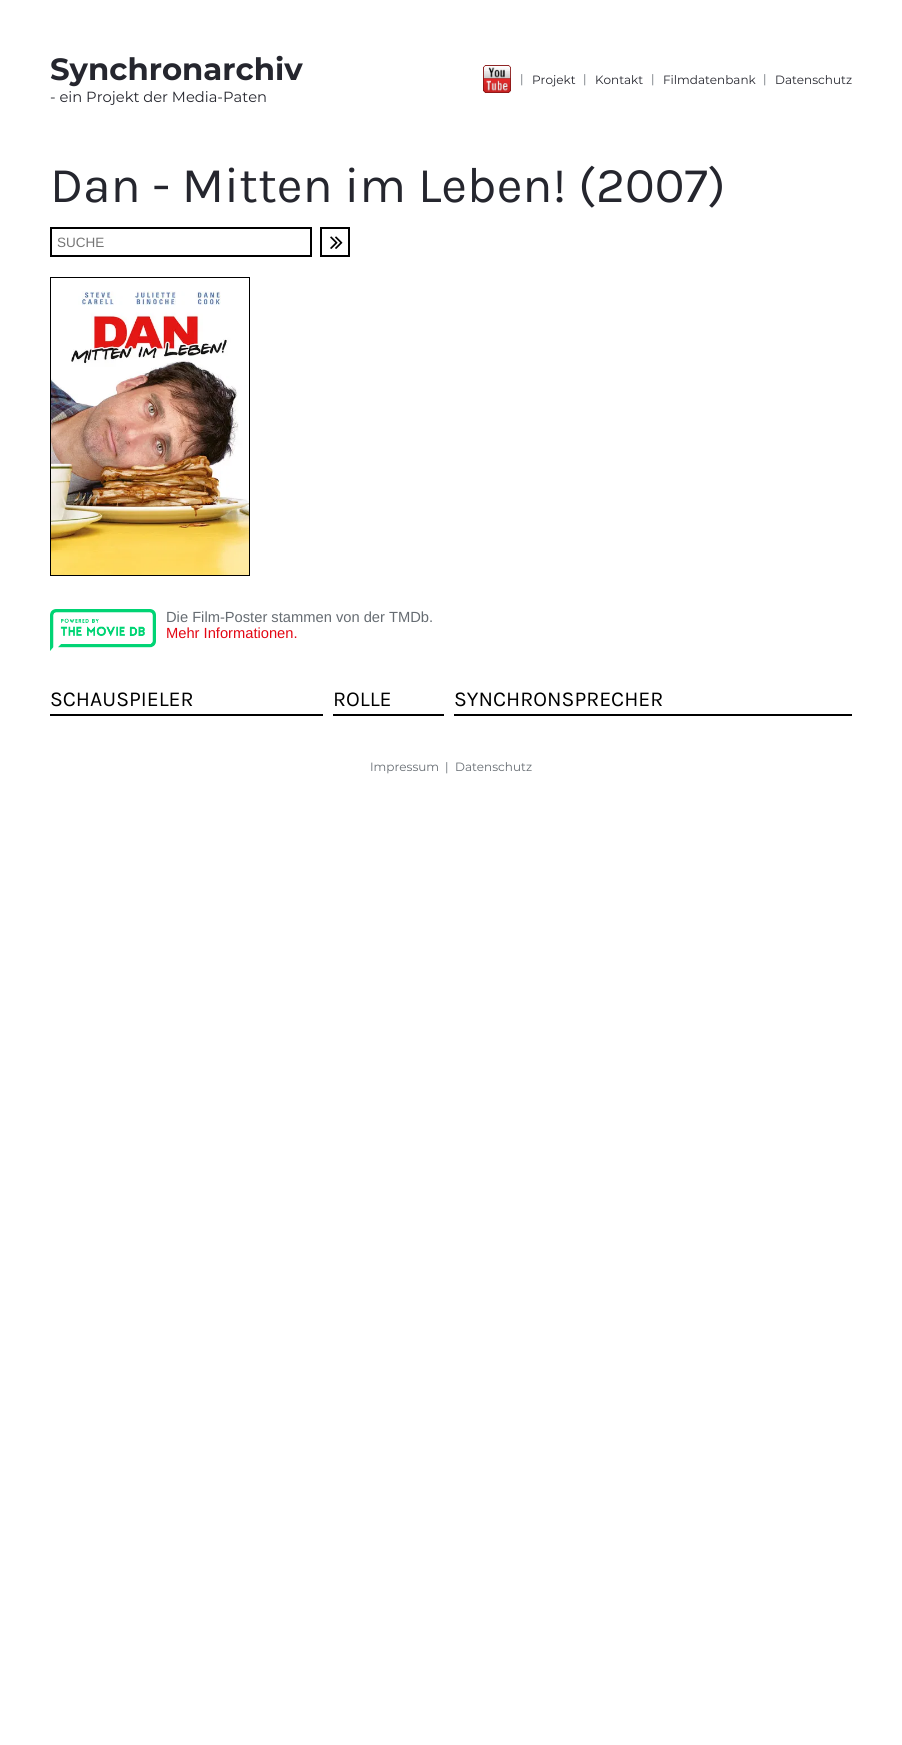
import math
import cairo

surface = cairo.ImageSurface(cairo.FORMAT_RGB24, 902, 1745)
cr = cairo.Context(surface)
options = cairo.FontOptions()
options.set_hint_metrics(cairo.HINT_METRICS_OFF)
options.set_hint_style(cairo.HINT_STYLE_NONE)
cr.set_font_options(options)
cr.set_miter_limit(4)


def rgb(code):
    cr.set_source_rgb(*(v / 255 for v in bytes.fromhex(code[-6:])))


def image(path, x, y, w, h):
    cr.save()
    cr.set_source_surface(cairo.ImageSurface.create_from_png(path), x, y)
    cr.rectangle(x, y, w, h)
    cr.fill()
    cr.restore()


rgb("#ffffff")
cr.paint()
image("img/1.png", 483, 65, 28, 28)
cr.rectangle(51, 228, 260, 28)
rgb("#000000")
cr.stroke()
cr.rectangle(321, 228, 28, 28)
cr.stroke()
image("img/2.png", 330, 236, 13, 13)
cr.rectangle(50.5, 277.5, 199, 298)
cr.set_line_width(1)
cr.stroke()
image("img/3.png", 51, 291, 198, 284)
image("img/4.png", 50, 609, 106, 42)
for x, y, w, h, color in [
    (50, 714, 273, 2, "#000000"),
    (333, 714, 111, 2, "#000000"),
    (454, 714, 398, 2, "#000000"),
]:
    rgb(color)
    cr.rectangle(x, y, w, h)
    cr.fill()
cr.select_font_face("Montserrat", cairo.FONT_SLANT_NORMAL, cairo.FONT_WEIGHT_BOLD)
cr.set_font_size(30.75)
rgb("#25262e")
cr.move_to(50, 80)
cr.show_text("Synchronarchiv")
cr.select_font_face("Montserrat")
cr.set_font_size(14.7)
cr.move_to(50, 102)
cr.show_text("- ein Projekt der Media-Paten")
cr.set_font_size(12)
rgb("#666c72")
cr.move_to(520, 83)
cr.show_text("|")
rgb("#25262e")
cr.move_to(532, 84)
cr.show_text("Projekt")
rgb("#666c72")
cr.move_to(583, 83)
cr.show_text("|")
rgb("#25262e")
cr.move_to(595, 84)
cr.show_text("Kontakt")
rgb("#666c72")
cr.move_to(651, 83)
cr.show_text("|")
rgb("#25262e")
cr.move_to(663, 84)
cr.show_text("Filmdatenbank")
rgb("#666c72")
cr.move_to(763, 83)
cr.show_text("|")
rgb("#25262e")
cr.move_to(775, 84)
cr.show_text("Datenschutz")
cr.select_font_face("Karla")
cr.set_font_size(50)
cr.move_to(50, 202)
cr.show_text("Dan - Mitten im Leben! (2007)")
cr.select_font_face("Liberation Sans")
cr.set_font_size(13.5)
rgb("#757575")
cr.move_to(57, 247)
cr.show_text("SUCHE")
cr.set_font_size(14.7)
rgb("#666c72")
cr.move_to(166, 622)
cr.show_text("Die Film-Poster stammen von der TMDb.")
rgb("#e30613")
cr.move_to(166, 638)
cr.show_text("Mehr Informationen.")
cr.select_font_face("Karla")
cr.set_font_size(21.25)
rgb("#000000")
for x, y, s in [
    (50, 706, "SCHAUSPIELER"),
    (333, 706, "ROLLE"),
    (454, 706, "SYNCHRONSPRECHER"),
]:
    cr.move_to(x, y)
    cr.show_text(s)
cr.select_font_face("Montserrat")
cr.set_font_size(12)
rgb("#666c72")
for x, y, s in [
    (370, 771, "Impressum"),
    (445, 771, "|"),
    (455, 771, "Datenschutz"),
]:
    cr.move_to(x, y)
    cr.show_text(s)
surface.write_to_png("page.png")
